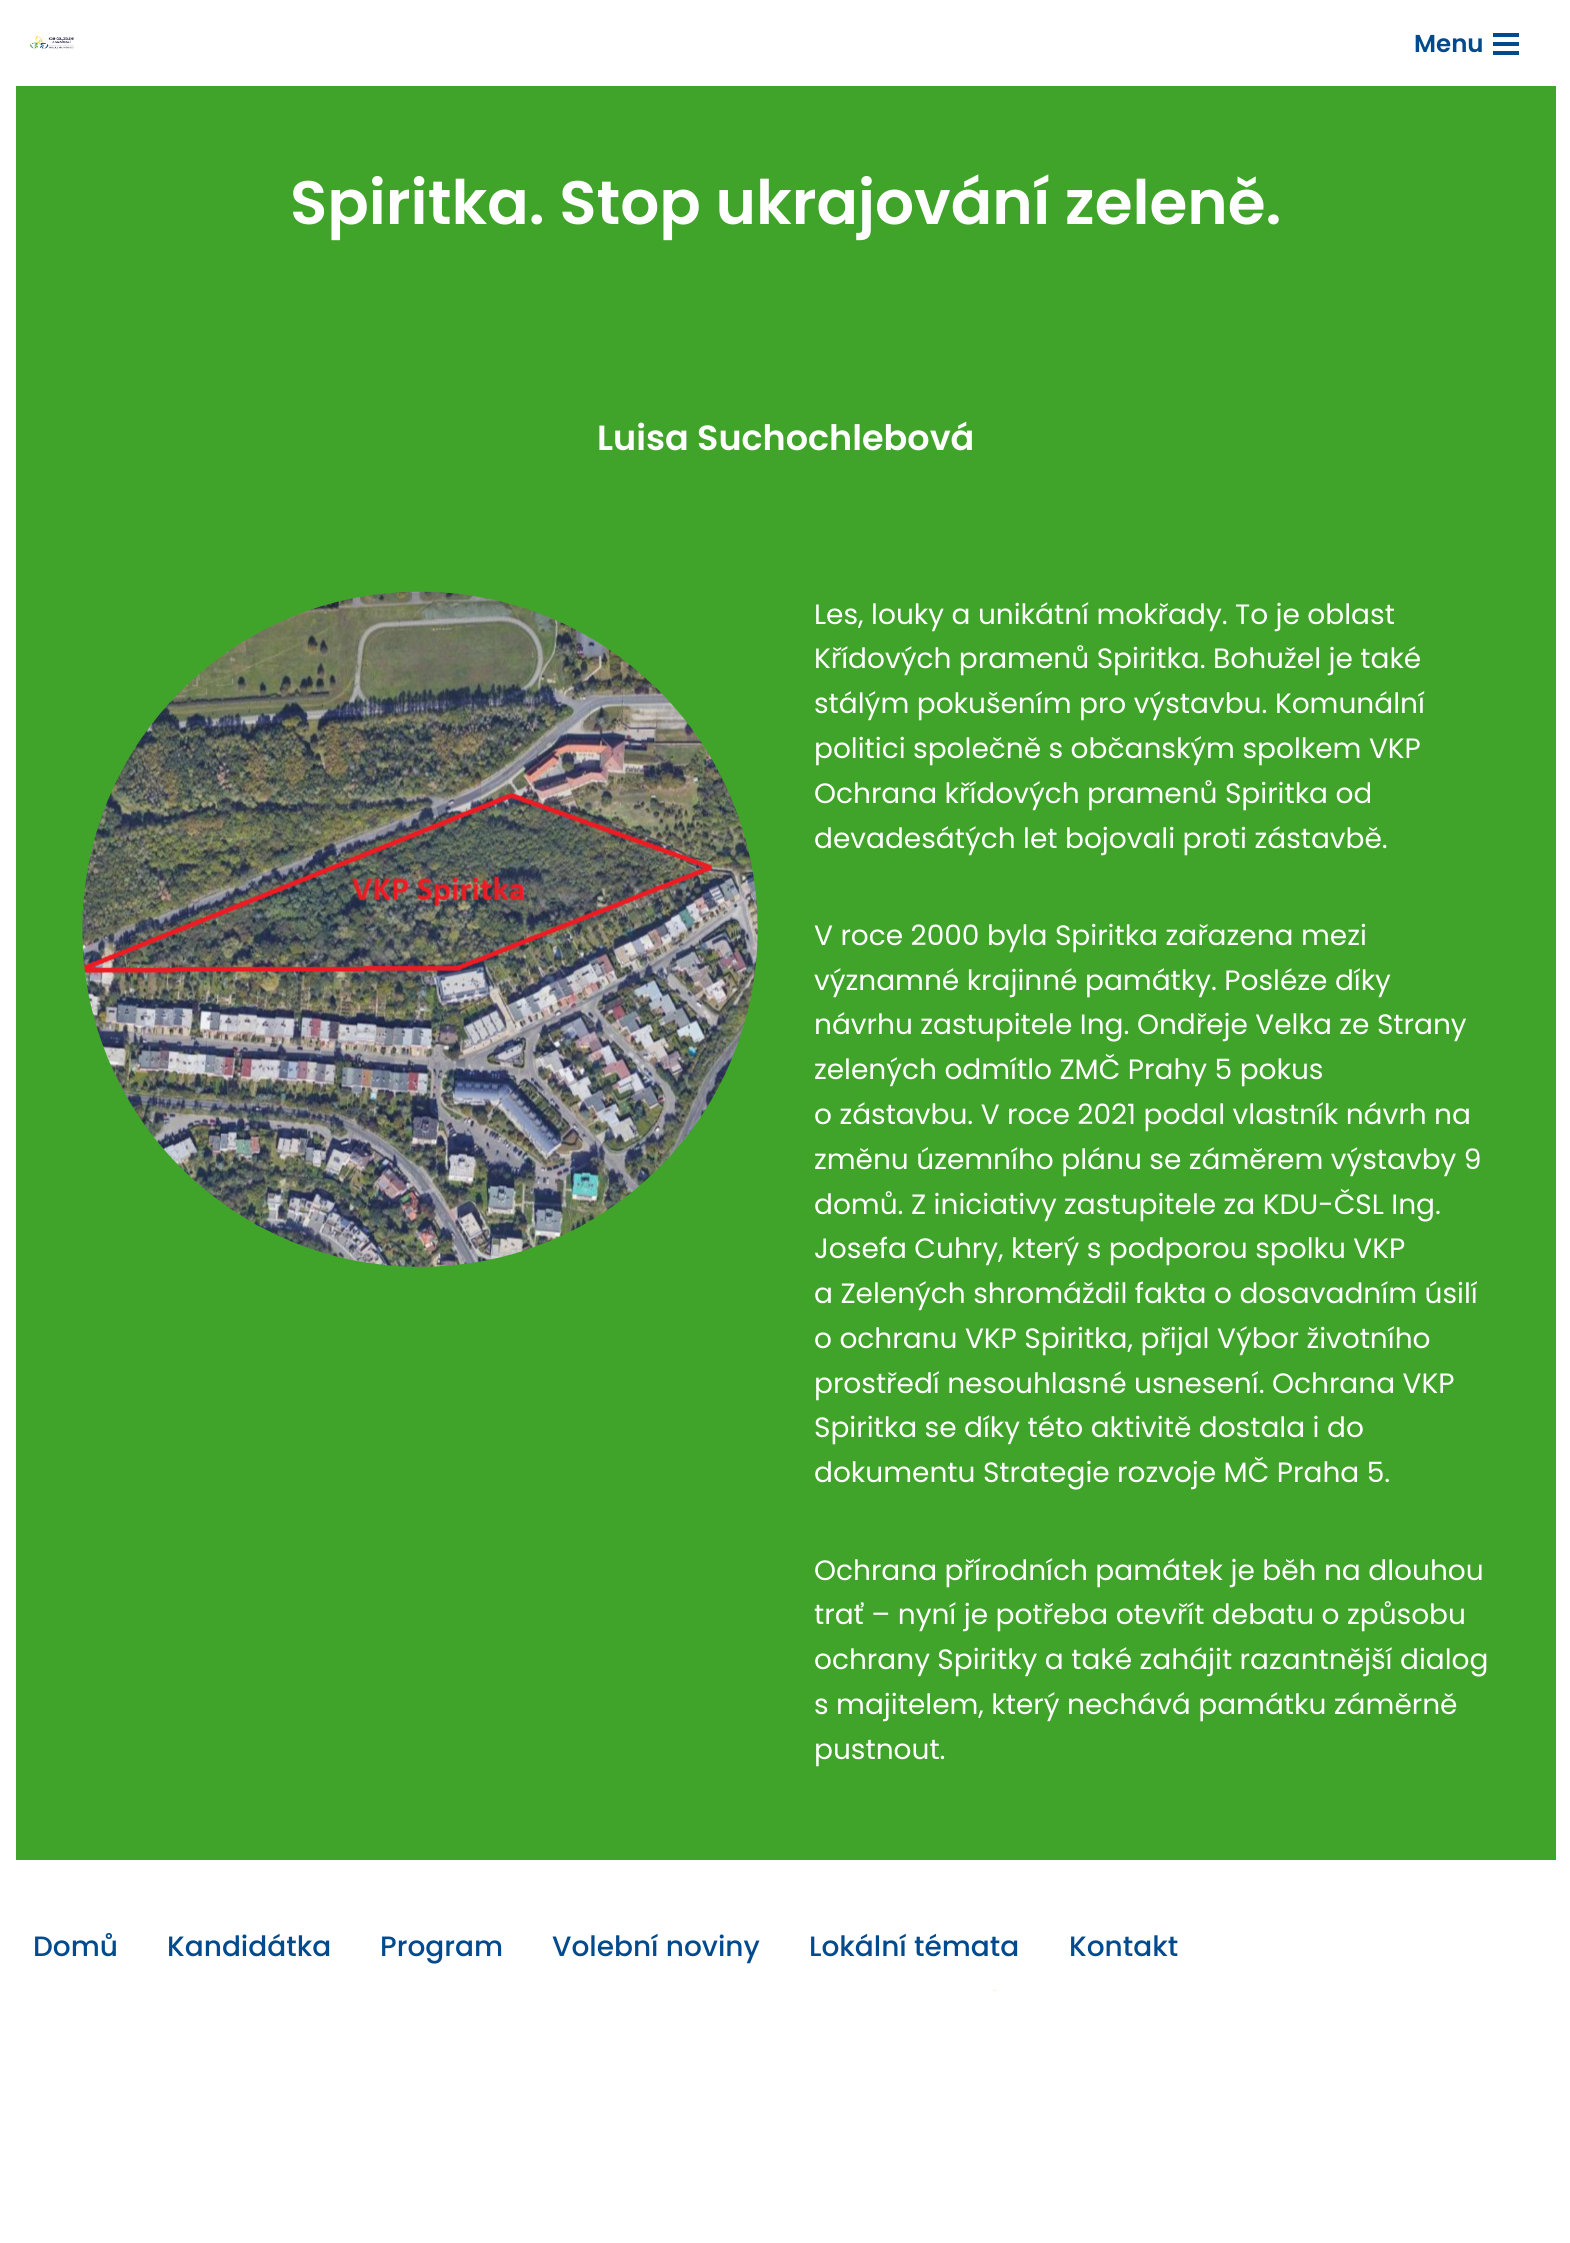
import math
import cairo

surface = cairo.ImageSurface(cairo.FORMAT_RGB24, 1570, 2243)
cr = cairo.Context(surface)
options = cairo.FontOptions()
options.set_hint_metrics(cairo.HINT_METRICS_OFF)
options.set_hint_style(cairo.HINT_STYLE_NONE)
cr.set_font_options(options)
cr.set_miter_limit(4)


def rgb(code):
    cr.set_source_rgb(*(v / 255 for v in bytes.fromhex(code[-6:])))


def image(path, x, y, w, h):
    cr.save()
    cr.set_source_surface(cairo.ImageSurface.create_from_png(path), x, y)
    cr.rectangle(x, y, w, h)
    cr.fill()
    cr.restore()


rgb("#ffffff")
cr.paint()
image("img/1.png", 30, 36, 44, 13)
for x, y, w, h, color in [
    (1493, 33, 26, 4, "#014a8e"),
    (1493, 42, 26, 4, "#014a8e"),
    (1493, 51, 26, 4, "#014a8e"),
    (16, 86, 1540, 1774, "#41a42a"),
]:
    rgb(color)
    cr.rectangle(x, y, w, h)
    cr.fill()
image("img/2.png", 82, 591, 676, 676)
image("img/3.png", 993, 1989, 3, 2)
cr.select_font_face("Poppins SemiBold")
cr.set_font_size(24.5)
rgb("#014a8e")
cr.move_to(1414, 52)
cr.show_text("Menu")
cr.set_font_size(61.25)
rgb("#ffffff")
cr.move_to(290, 224)
cr.show_text("Spiritka. Stop ukrajování zeleně.")
cr.set_font_size(35)
cr.move_to(597, 450)
cr.show_text("Luisa Suchochlebová")
cr.select_font_face("Poppins")
cr.set_font_size(28)
for x, y, s in [
    (814, 624, "Les, louky a unikátní mokřady. To je oblast"),
    (814, 668, "Křídových pramenů Spiritka. Bohužel je také"),
    (814, 713, "stálým pokušením pro výstavbu. Komunální"),
    (814, 758, "politici společně s občanským spolkem VKP"),
    (814, 803, "Ochrana křídových pramenů Spiritka od"),
    (814, 848, "devadesátých let bojovali proti zástavbě."),
    (814, 945, "V roce 2000 byla Spiritka zařazena mezi"),
    (814, 990, "významné krajinné památky. Posléze díky"),
    (814, 1034, "návrhu zastupitele Ing. Ondřeje Velka ze Strany"),
    (814, 1079, "zelených odmítlo ZMČ Prahy 5 pokus"),
    (814, 1124, "o zástavbu. V roce 2021 podal vlastník návrh na"),
    (814, 1169, "změnu územního plánu se záměrem výstavby 9"),
    (814, 1214, "domů. Z iniciativy zastupitele za KDU-ČSL Ing."),
    (814, 1258, "Josefa Cuhry, který s podporou spolku VKP"),
    (814, 1303, "a Zelených shromáždil fakta o dosavadním úsilí"),
    (814, 1348, "o ochranu VKP Spiritka, přijal Výbor životního"),
    (814, 1393, "prostředí nesouhlasné usnesení. Ochrana VKP"),
    (814, 1437, "Spiritka se díky této aktivitě dostala i do"),
    (814, 1482, "dokumentu Strategie rozvoje MČ Praha 5."),
    (814, 1580, "Ochrana přírodních památek je běh na dlouhou"),
    (814, 1624, "trať – nyní je potřeba otevřít debatu o způsobu"),
    (814, 1669, "ochrany Spiritky a také zahájit razantnější dialog"),
    (814, 1714, "s majitelem, který nechává památku záměrně"),
    (814, 1759, "pustnout."),
]:
    cr.move_to(x, y)
    cr.show_text(s)
cr.select_font_face("Poppins Medium")
rgb("#014a8e")
for x, y, s in [
    (33, 1956, "Domů"),
    (167, 1956, "Kandidátka"),
    (380, 1956, "Program"),
    (552, 1956, "Volební noviny"),
    (809, 1956, "Lokální témata"),
    (1069, 1956, "Kontakt"),
]:
    cr.move_to(x, y)
    cr.show_text(s)
surface.write_to_png("page.png")
